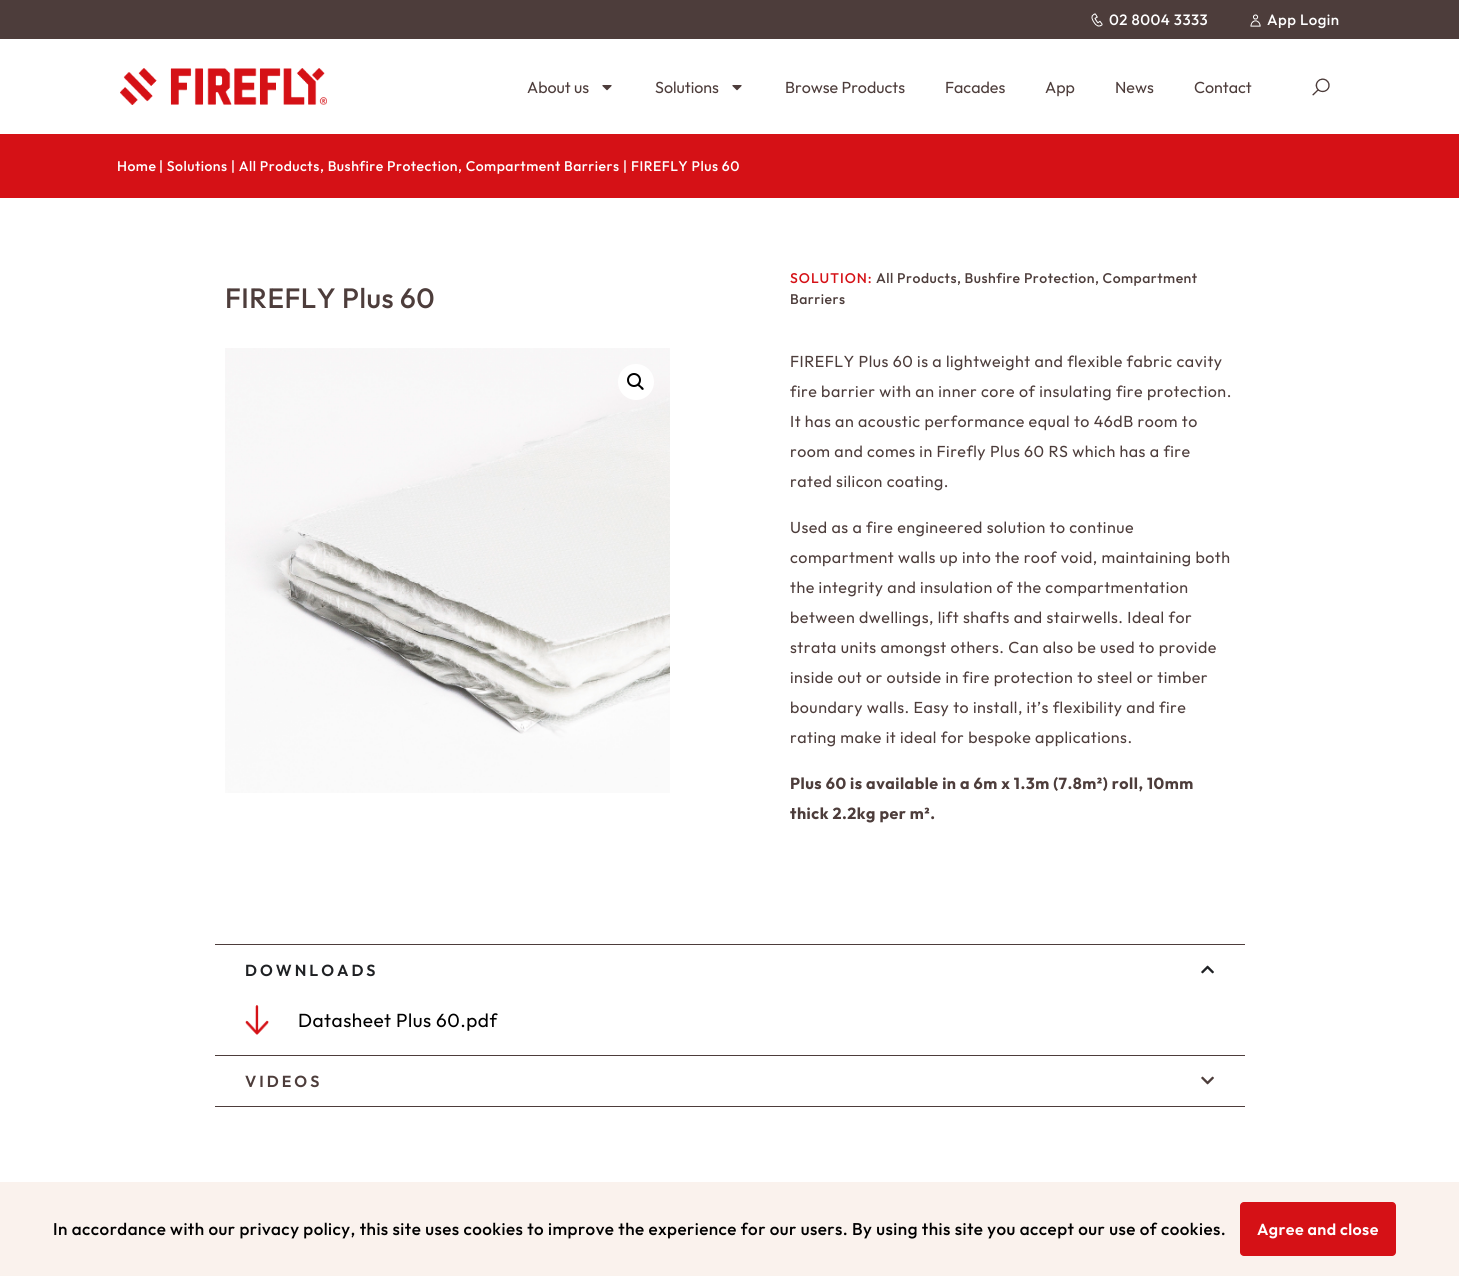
import math
import cairo

surface = cairo.ImageSurface(cairo.FORMAT_RGB24, 1459, 1276)
cr = cairo.Context(surface)
options = cairo.FontOptions()
options.set_hint_metrics(cairo.HINT_METRICS_OFF)
options.set_hint_style(cairo.HINT_STYLE_NONE)
cr.set_font_options(options)
cr.set_miter_limit(4)


def rgb(code):
    cr.set_source_rgb(*(v / 255 for v in bytes.fromhex(code[-6:])))


def tracked(x, y, s, letter, word):
    cr.move_to(x, y)
    for ch in s:
        cr.show_text(ch)
        cr.rel_move_to(letter + word * (ch == ' '), 0)


def rrect(x, y, w, h, r):
    cr.new_sub_path()
    for i, (u, v) in enumerate([(x + w - r, y + h - r), (x + r, y + h - r), (x + r, y + r), (x + w - r, y + r)]):
        cr.arc(u, v, r, i * math.pi / 2, (i + 1) * math.pi / 2)
    cr.close_path()


def image(path, x, y, w, h):
    cr.save()
    cr.set_source_surface(cairo.ImageSurface.create_from_png(path), x, y)
    cr.rectangle(x, y, w, h)
    cr.fill()
    cr.restore()


rgb("#ffffff")
cr.paint()
rgb("#4d3d3b")
cr.rectangle(0, 0, 1459, 39)
cr.fill()
image("img/1.png", 1091, 13, 12, 14)
image("img/2.png", 1250, 14, 11, 13)
image("img/3.png", 120, 68, 207, 37)
image("img/4.png", 602, 85, 10, 6)
image("img/4.png", 732, 85, 10, 6)
image("img/5.png", 1312, 78, 18, 18)
rgb("#d51116")
cr.rectangle(0, 134, 1459, 64)
cr.fill()
image("img/6.png", 225, 348, 445, 445)
rgb("#ffffff")
cr.arc(636, 382, 18, 0, 2 * math.pi)
cr.fill()
cr.arc(634, 380, 6, 0, 2 * math.pi)
rgb("#000000")
cr.stroke()
cr.new_path()
cr.move_to(637.5, 384)
cr.curve_to(639, 383, 640.5, 385.5, 641, 386)
cr.curve_to(642, 386.5, 644.5, 388.5, 643.5, 389.5)
cr.curve_to(642, 391, 640.5, 388, 640, 387.5)
cr.curve_to(639, 387, 636.5, 385, 637.5, 384)
cr.close_path()
cr.fill()
rgb("#4d3d3b")
cr.rectangle(215, 1106, 1030, 1)
cr.fill()
cr.rectangle(215, 944, 1030, 1)
cr.fill()
image("img/7.png", 1201, 965, 13, 9)
image("img/8.png", 245, 1005, 24, 30)
cr.rectangle(215, 1055, 1030, 1)
cr.fill()
image("img/9.png", 1201, 1076, 13, 9)
rgb("#faf2ed")
cr.rectangle(0, 1182, 1459, 94)
cr.fill()
rgb("#d51116")
rrect(1240, 1202, 156, 54, 4)
cr.fill()
cr.select_font_face("Outfit Medium")
cr.set_font_size(15)
rgb("#ffffff")
tracked(1109, 25, "02 8004 3333", 0.5, 0)
tracked(1267, 25, "App Login", 0.5, 0)
cr.select_font_face("Outfit")
cr.set_font_size(16)
rgb("#4d3d3b")
for x, y, s in [
    (527, 93, "About us"),
    (655, 93, "Solutions"),
    (785, 93, "Browse Products"),
    (945, 93, "Facades"),
    (1045, 93, "App"),
    (1115, 93, "News"),
    (1194, 93, "Contact"),
]:
    cr.move_to(x, y)
    cr.show_text(s)
cr.select_font_face("Outfit Medium")
cr.set_font_size(14)
rgb("#ffffff")
for x, y, s in [
    (117, 171, "Home"),
    (159, 171, "| Solutions"),
    (231, 171, "| All Products"),
    (320, 171, ", Bushfire Protection"),
    (458, 171, ", Compartment Barriers"),
    (623, 171, "|"),
    (631, 171, "FIREFLY Plus 60"),
]:
    tracked(x, y, s, 0.5, 0)
cr.set_font_size(28)
rgb("#4d3d3b")
tracked(225, 308, "FIREFLY Plus 60", 0.5, 0)
cr.set_font_size(14)
rgb("#d51116")
tracked(790, 283, "SOLUTION:", 1, 0)
rgb("#4d3d3b")
tracked(876, 283, "All Products, Bushfire Protection, Compartment", 0.5, 0)
tracked(790, 304, "Barriers", 0.5, 0)
cr.select_font_face("Outfit")
cr.set_font_size(16)
for x, y, s in [
    (790, 367, "FIREFLY Plus 60 is a lightweight and flexible fabric cavity"),
    (790, 397, "fire barrier with an inner core of insulating fire protection."),
    (790, 427, "It has an acoustic performance equal to 46dB room to"),
    (790, 457, "room and comes in Firefly Plus 60 RS which has a fire"),
    (790, 487, "rated silicon coating."),
    (790, 533, "Used as a fire engineered solution to continue"),
    (790, 563, "compartment walls up into the roof void, maintaining both"),
    (790, 593, "the integrity and insulation of the compartmentation"),
    (790, 623, "between dwellings, lift shafts and stairwells. Ideal for"),
    (790, 653, "strata units amongst others. Can also be used to provide"),
    (790, 683, "inside out or outside in fire protection to steel or timber"),
    (790, 713, "boundary walls. Easy to install, it’s flexibility and fire"),
    (790, 743, "rating make it ideal for bespoke applications."),
]:
    tracked(x, y, s, 0.5, 0)
cr.select_font_face("Outfit", cairo.FONT_SLANT_NORMAL, cairo.FONT_WEIGHT_BOLD)
tracked(790, 789, "Plus 60 is available in a 6m x 1.3m (7.8m²) roll, 10mm", 0.5, 0)
tracked(790, 819, "thick 2.2kg per m².", 0.5, 0)
cr.select_font_face("Outfit SemiBold")
rgb("#1f2124")
tracked(245, 976, "DOWNLOADS", 3, 0)
cr.select_font_face("Outfit")
cr.set_font_size(19)
rgb("#000000")
tracked(298, 1027, "Datasheet Plus 60.pdf", 0.5, 0)
cr.select_font_face("Outfit SemiBold")
cr.set_font_size(16)
rgb("#4d3d3b")
tracked(245, 1087, "VIDEOS", 3, 0)
cr.select_font_face("Outfit Medium")
cr.set_font_size(17)
rgb("#000000")
tracked(53, 1235, "In accordance with our privacy policy, this site uses cookies to improve the experience for our users. By using this site you accept our use of cookies.", 0.48, 0)
cr.select_font_face("Outfit SemiBold")
cr.set_font_size(16)
rgb("#ffffff")
tracked(1257, 1235, "Agree and close", 0.4, 0)
surface.write_to_png("page.png")
